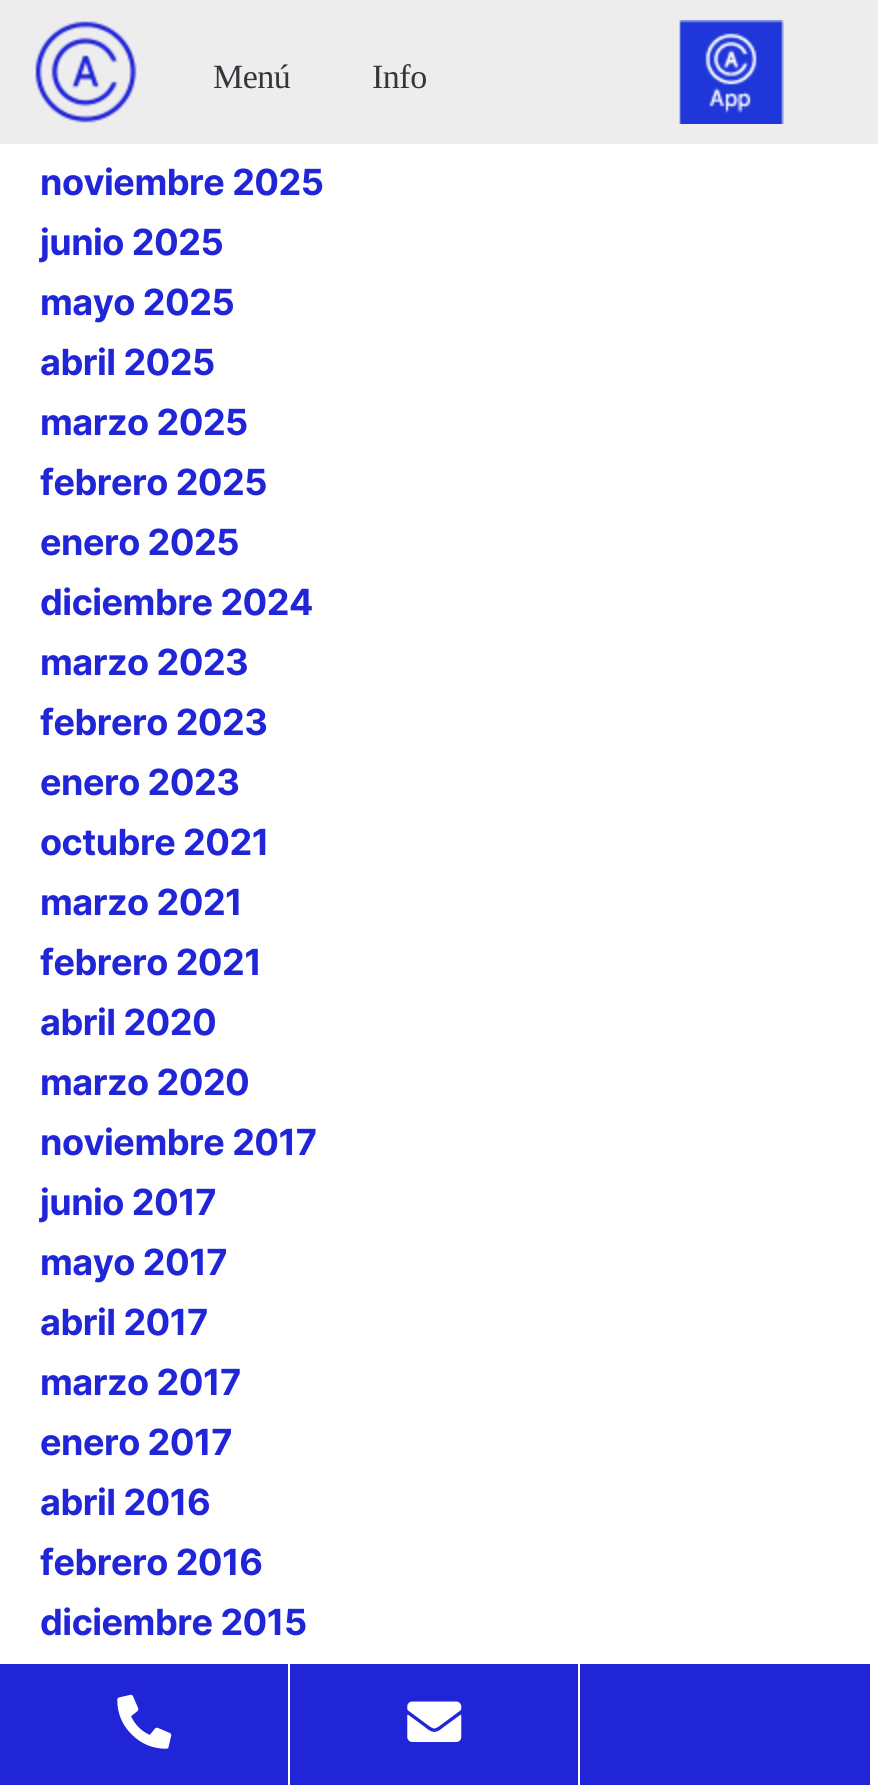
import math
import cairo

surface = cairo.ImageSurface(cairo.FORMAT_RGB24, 878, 1785)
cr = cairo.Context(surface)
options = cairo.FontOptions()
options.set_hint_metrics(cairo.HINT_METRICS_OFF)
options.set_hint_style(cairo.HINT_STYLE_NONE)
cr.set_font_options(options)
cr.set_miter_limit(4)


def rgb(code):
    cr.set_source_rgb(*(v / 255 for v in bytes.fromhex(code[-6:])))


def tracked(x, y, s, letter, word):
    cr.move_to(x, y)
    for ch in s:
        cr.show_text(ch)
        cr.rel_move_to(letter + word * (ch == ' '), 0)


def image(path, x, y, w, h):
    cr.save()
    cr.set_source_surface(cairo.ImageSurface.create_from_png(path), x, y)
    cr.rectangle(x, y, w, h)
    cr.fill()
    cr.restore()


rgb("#ffffff")
cr.paint()
rgb("#ededed")
cr.rectangle(0, 0, 878, 144)
cr.fill()
image("img/1.png", 35, 21, 102, 102)
image("img/2.png", 679, 20, 105, 104)
rgb("#2025d8")
cr.rectangle(0, 1664, 288, 121)
cr.fill()
image("img/3.png", 117, 1694, 55, 55)
cr.rectangle(290, 1664, 288, 121)
cr.fill()
image("img/4.png", 407, 1701, 55, 41)
cr.rectangle(580, 1664, 290, 121)
cr.fill()
cr.select_font_face("Liberation Serif")
cr.set_font_size(34)
rgb("#33373d")
tracked(213, 88, "Menú", -0.5, 0)
tracked(372, 88, "Info", -0.5, 0)
cr.select_font_face("Inter", cairo.FONT_SLANT_NORMAL, cairo.FONT_WEIGHT_BOLD)
cr.set_font_size(36)
rgb("#2025d8")
for x, y, s in [
    (40, 195, "noviembre 2025"),
    (40, 255, "junio 2025"),
    (40, 315, "mayo 2025"),
    (40, 375, "abril 2025"),
    (40, 435, "marzo 2025"),
    (40, 495, "febrero 2025"),
    (40, 555, "enero 2025"),
    (40, 615, "diciembre 2024"),
    (40, 675, "marzo 2023"),
    (40, 735, "febrero 2023"),
    (40, 795, "enero 2023"),
    (40, 855, "octubre 2021"),
    (40, 915, "marzo 2021"),
    (40, 975, "febrero 2021"),
    (40, 1035, "abril 2020"),
    (40, 1095, "marzo 2020"),
    (40, 1155, "noviembre 2017"),
    (40, 1215, "junio 2017"),
    (40, 1275, "mayo 2017"),
    (40, 1335, "abril 2017"),
    (40, 1395, "marzo 2017"),
    (40, 1455, "enero 2017"),
    (40, 1515, "abril 2016"),
    (40, 1575, "febrero 2016"),
    (40, 1635, "diciembre 2015"),
]:
    tracked(x, y, s, -0.5, 0)
surface.write_to_png("page.png")
